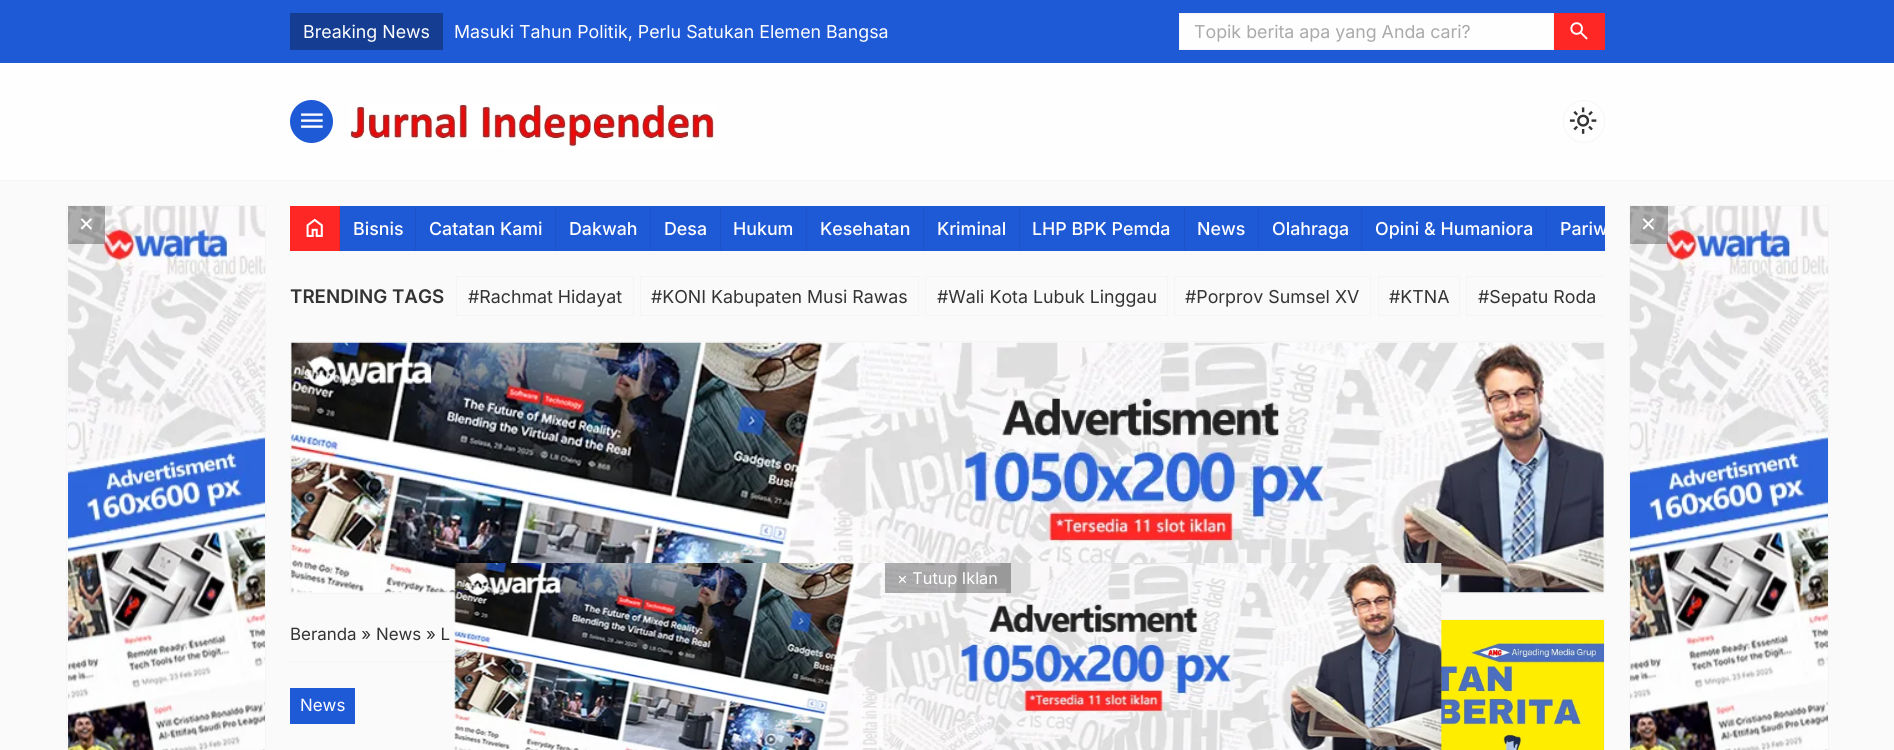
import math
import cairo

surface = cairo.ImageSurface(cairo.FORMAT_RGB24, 1894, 750)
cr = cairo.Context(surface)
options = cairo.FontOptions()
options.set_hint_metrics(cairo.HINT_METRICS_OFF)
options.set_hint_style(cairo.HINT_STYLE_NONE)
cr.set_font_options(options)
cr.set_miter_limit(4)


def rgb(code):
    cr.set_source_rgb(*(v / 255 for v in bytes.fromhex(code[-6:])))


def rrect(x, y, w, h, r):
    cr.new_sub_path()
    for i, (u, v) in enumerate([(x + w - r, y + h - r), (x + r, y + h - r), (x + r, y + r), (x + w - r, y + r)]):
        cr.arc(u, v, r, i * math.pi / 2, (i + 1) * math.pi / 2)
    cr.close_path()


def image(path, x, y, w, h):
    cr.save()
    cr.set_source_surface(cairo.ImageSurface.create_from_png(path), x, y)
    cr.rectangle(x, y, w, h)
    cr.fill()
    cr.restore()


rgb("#fafafa")
cr.paint()
rgb("#1f5ad6")
cr.rectangle(0, 0, 1894, 63)
cr.fill()
rgb("#153e93")
cr.rectangle(290, 13, 153, 37)
cr.fill()
rgb("#fefefe")
cr.rectangle(1179.5, 13.5, 374, 36)
cr.fill_preserve()
rgb("#f5f5f5")
cr.set_line_width(1)
cr.stroke()
rgb("#ff2626")
cr.rectangle(1554, 13, 51, 37)
cr.fill()
image("img/1.png", 1570, 22, 18, 18)
rgb("#fefefe")
cr.rectangle(0, 63, 1894, 117)
cr.fill()
rgb("#f5f5f5")
cr.rectangle(0, 180, 1894, 1)
cr.fill()
rgb("#1f5ad6")
cr.arc(311.5, 121.5, 21.5, 0, 2 * math.pi)
cr.fill()
image("img/2.png", 301, 113, 22, 15)
image("img/3.png", 350, 104, 365, 43)
rrect(1563.5, 100.5, 41, 42, 20.5)
rgb("#f5f5f5")
cr.stroke()
image("img/4.png", 1569, 107, 28, 27)
cr.rectangle(66.5, 205.5, 199, 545)
cr.stroke()
image("img/5.png", 68, 206, 197, 544)
cr.set_source_rgba(0, 0, 0, 0.31)
cr.rectangle(68, 206, 37, 38)
cr.fill()
rgb("#ff2626")
cr.rectangle(290, 206, 49, 45)
cr.fill()
rgb("#ef2424")
cr.rectangle(339, 206, 1, 45)
cr.fill()
image("img/6.png", 306, 218, 17, 19)
for x, y, w, h, color in [
    (340, 206, 1265, 45, "#1f5ad6"),
    (415, 206, 1, 45, "#1d54c9"),
    (555, 206, 1, 45, "#1d54c9"),
    (650, 206, 1, 45, "#1d54c9"),
    (720, 206, 1, 45, "#1d54c9"),
    (806, 206, 1, 45, "#1d54c9"),
    (923, 206, 1, 45, "#1d54c9"),
    (1019, 206, 1, 45, "#1d54c9"),
    (1184, 206, 1, 45, "#1d54c9"),
    (1258, 206, 1, 45, "#1d54c9"),
    (1361, 206, 1, 45, "#1d54c9"),
    (1546, 206, 1, 45, "#1d54c9"),
]:
    rgb(color)
    cr.rectangle(x, y, w, h)
    cr.fill()
cr.rectangle(1629.5, 205.5, 199, 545)
rgb("#f5f5f5")
cr.stroke()
image("img/7.png", 1630, 206, 198, 544)
cr.set_source_rgba(0, 0, 0, 0.31)
cr.rectangle(1630, 206, 38, 38)
cr.fill()
cr.rectangle(456.5, 276.5, 177, 39)
rgb("#f5f5f5")
cr.stroke()
cr.rectangle(640.5, 276.5, 278, 39)
cr.stroke()
cr.rectangle(925.5, 276.5, 242, 39)
cr.stroke()
cr.rectangle(1174.5, 276.5, 196, 39)
cr.stroke()
cr.rectangle(1378.5, 276.5, 81, 39)
cr.stroke()
cr.save()
cr.rectangle(456, 276, 1149, 40)
cr.clip()
cr.rectangle(1466.5, 276.5, 141, 39)
cr.stroke()
cr.restore()
cr.rectangle(290.5, 341.5, 1314, 252)
cr.stroke()
image("img/8.png", 291, 342, 1313, 251)
cr.rectangle(290, 661, 166, 1)
cr.fill()
rgb("#1f5ad6")
cr.rectangle(290, 688, 65, 36)
cr.fill()
cr.rectangle(1228.5, 619.5, 376, 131)
rgb("#f5f5f5")
cr.stroke()
image("img/9.png", 1441, 620, 163, 130)
image("img/10.png", 454, 563, 988, 187)
cr.set_source_rgba(0, 0, 0, 0.31)
cr.rectangle(885, 563, 126, 30)
cr.fill()
cr.select_font_face("Inter")
cr.set_font_size(17.8)
rgb("#ffffff")
cr.move_to(303, 38)
cr.show_text("Breaking News")
cr.move_to(454, 38)
cr.show_text("Masuki Tahun Politik, Perlu Satukan Elemen Bangsa")
rgb("#aaaaaa")
cr.move_to(1194, 38)
cr.show_text("Topik berita apa yang Anda cari?")
cr.set_font_size(25)
rgb("#ffffff")
cr.move_to(78, 231)
cr.show_text("×")
cr.select_font_face("Inter Medium")
cr.set_font_size(17.8)
for x, y, s in [
    (353, 235, "Bisnis"),
    (429, 235, "Catatan Kami"),
    (569, 235, "Dakwah"),
    (664, 235, "Desa"),
    (733, 235, "Hukum"),
    (820, 235, "Kesehatan"),
    (937, 235, "Kriminal"),
    (1032, 235, "LHP BPK Pemda"),
    (1197, 235, "News"),
    (1272, 235, "Olahraga"),
    (1375, 235, "Opini & Humaniora"),
]:
    cr.move_to(x, y)
    cr.show_text(s)
cr.save()
cr.rectangle(340, 206, 1265, 45)
cr.clip()
cr.move_to(1560, 235)
cr.show_text("Pariw")
cr.restore()
cr.select_font_face("Inter")
cr.set_font_size(25)
cr.move_to(1640, 231)
cr.show_text("×")
cr.select_font_face("Inter SemiBold")
cr.set_font_size(18.75)
rgb("#333333")
cr.move_to(290, 303)
cr.show_text("TRENDING TAGS")
cr.select_font_face("Inter")
cr.set_font_size(17.8)
for x, y, s in [
    (468, 303, "#Rachmat Hidayat"),
    (651, 303, "#KONI Kabupaten Musi Rawas"),
    (937, 303, "#Wali Kota Lubuk Linggau"),
    (1185, 303, "#Porprov Sumsel XV"),
    (1389, 303, "#KTNA"),
    (1478, 303, "#Sepatu Roda"),
]:
    cr.move_to(x, y)
    cr.show_text(s)
cr.set_font_size(16.9)
cr.move_to(290, 640)
cr.show_text("Beranda » News » L")
rgb("#ffffff")
cr.move_to(300, 711)
cr.show_text("News")
cr.set_font_size(16.25)
cr.move_to(897, 584)
cr.show_text("× Tutup Iklan")
surface.write_to_png("page.png")
